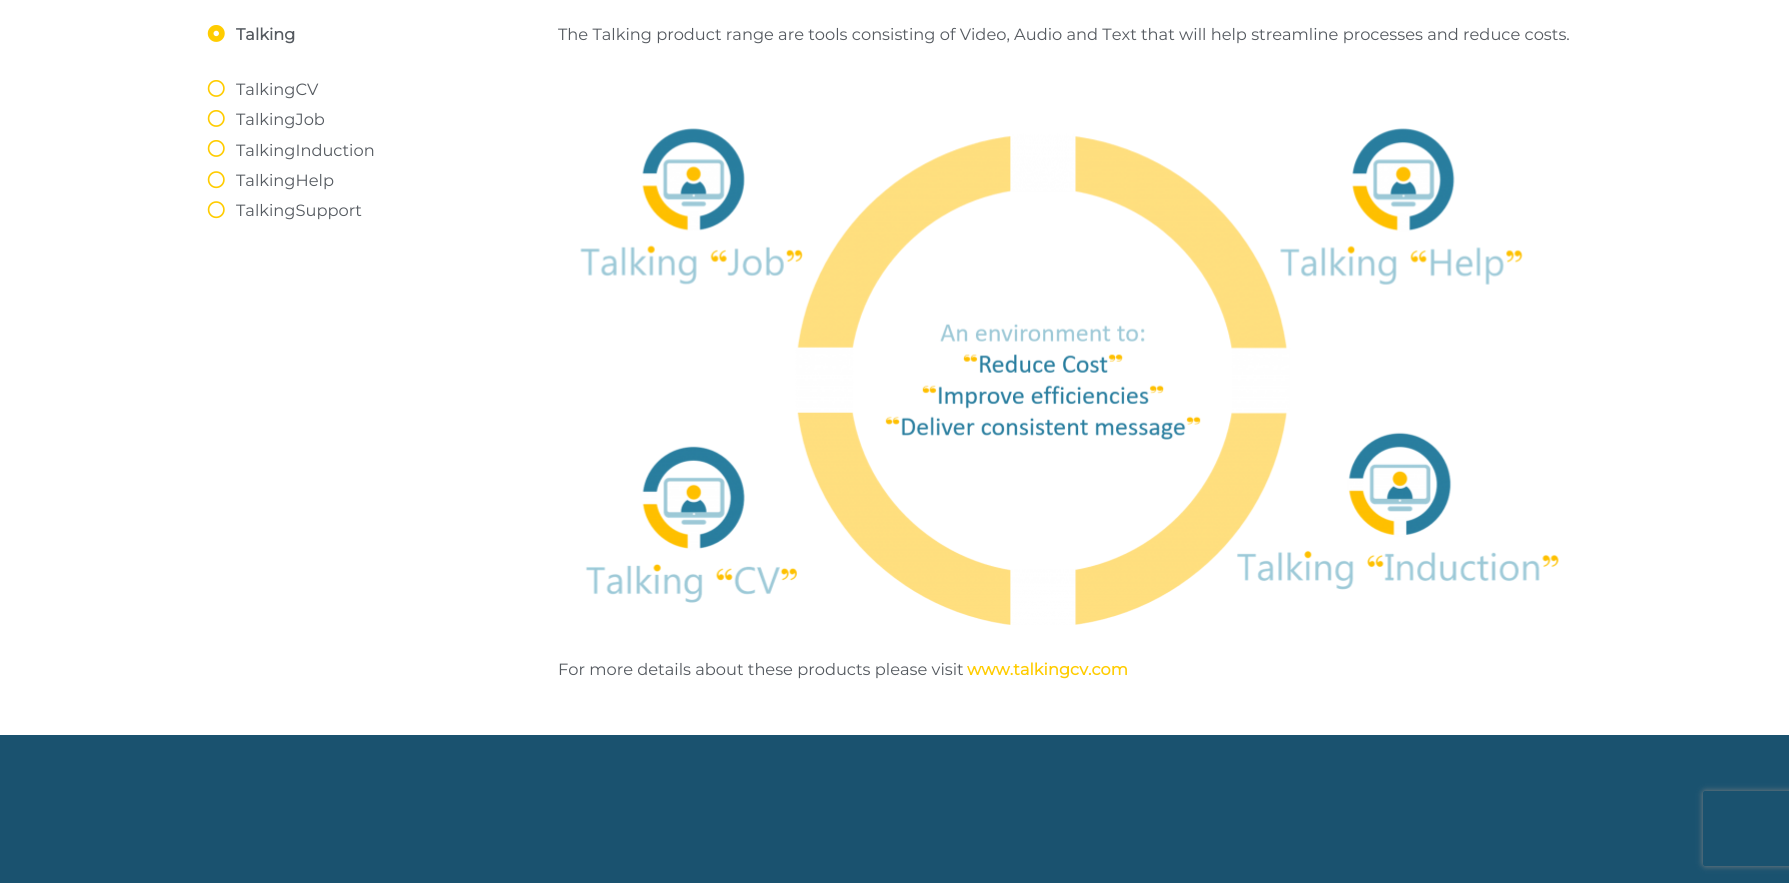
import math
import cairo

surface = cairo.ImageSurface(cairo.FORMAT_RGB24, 1789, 883)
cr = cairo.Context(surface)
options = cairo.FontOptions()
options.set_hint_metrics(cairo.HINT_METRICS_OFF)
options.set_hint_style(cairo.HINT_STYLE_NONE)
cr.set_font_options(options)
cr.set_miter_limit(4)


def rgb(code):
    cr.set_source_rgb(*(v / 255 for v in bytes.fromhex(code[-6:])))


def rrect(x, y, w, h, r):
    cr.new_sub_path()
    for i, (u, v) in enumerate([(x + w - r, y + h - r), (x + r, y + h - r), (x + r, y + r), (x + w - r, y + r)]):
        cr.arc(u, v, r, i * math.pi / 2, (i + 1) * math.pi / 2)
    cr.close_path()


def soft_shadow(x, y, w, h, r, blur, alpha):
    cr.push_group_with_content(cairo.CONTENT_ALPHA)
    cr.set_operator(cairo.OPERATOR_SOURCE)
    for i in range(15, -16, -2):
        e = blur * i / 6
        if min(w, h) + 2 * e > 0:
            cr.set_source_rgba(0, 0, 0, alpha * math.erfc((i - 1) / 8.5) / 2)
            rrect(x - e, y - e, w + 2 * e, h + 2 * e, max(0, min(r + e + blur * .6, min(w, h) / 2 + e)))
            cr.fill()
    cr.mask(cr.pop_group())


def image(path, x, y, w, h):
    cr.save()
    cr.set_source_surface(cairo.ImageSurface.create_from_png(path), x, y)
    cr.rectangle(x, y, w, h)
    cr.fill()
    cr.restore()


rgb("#ffffff")
cr.paint()
image("img/1.png", 207, 25, 18, 17)
image("img/2.png", 207, 80, 18, 17)
image("img/2.png", 207, 110, 18, 17)
image("img/2.png", 207, 140, 18, 17)
image("img/3.png", 207, 171, 18, 18)
image("img/3.png", 207, 201, 18, 18)
image("img/4.png", 580, 128, 979, 497)
rgb("#1a526f")
cr.rectangle(0, 735, 1789, 148)
cr.fill()
cr.save()
cr.set_fill_rule(cairo.FILL_RULE_EVEN_ODD)
cr.new_path()
cr.move_to(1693, 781)
cr.line_to(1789, 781)
cr.line_to(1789, 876)
cr.line_to(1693, 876)
cr.close_path()
cr.move_to(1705.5, 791)
cr.line_to(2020.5, 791)
cr.curve_to(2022, 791, 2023, 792, 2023, 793.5)
cr.line_to(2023, 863.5)
cr.curve_to(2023, 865, 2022, 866, 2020.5, 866)
cr.line_to(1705.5, 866)
cr.curve_to(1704, 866, 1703, 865, 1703, 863.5)
cr.line_to(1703, 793.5)
cr.curve_to(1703, 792, 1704, 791, 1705.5, 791)
cr.close_path()
cr.clip()
rgb("#808080")
soft_shadow(1703, 791, 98, 75, 2.5, 3, 1)
cr.restore()
cr.select_font_face("Montserrat", cairo.FONT_SLANT_NORMAL, cairo.FONT_WEIGHT_BOLD)
cr.set_font_size(16.25)
rgb("#54595f")
cr.move_to(236, 40)
cr.show_text("Talking")
cr.select_font_face("Montserrat")
for x, y, s in [
    (236, 95, "TalkingCV"),
    (236, 125, "TalkingJob"),
    (236, 156, "TalkingInduction"),
    (236, 186, "TalkingHelp"),
    (236, 216, "TalkingSupport"),
    (558, 40, "The Talking product range are tools consisting of Video, Audio and Text that will help streamline processes and reduce costs."),
    (558, 675, "For more details about these products please visit"),
]:
    cr.move_to(x, y)
    cr.show_text(s)
cr.select_font_face("Montserrat", cairo.FONT_SLANT_NORMAL, cairo.FONT_WEIGHT_BOLD)
rgb("#ffcc00")
cr.move_to(967, 675)
cr.show_text("www.talkingcv.com")
surface.write_to_png("page.png")
